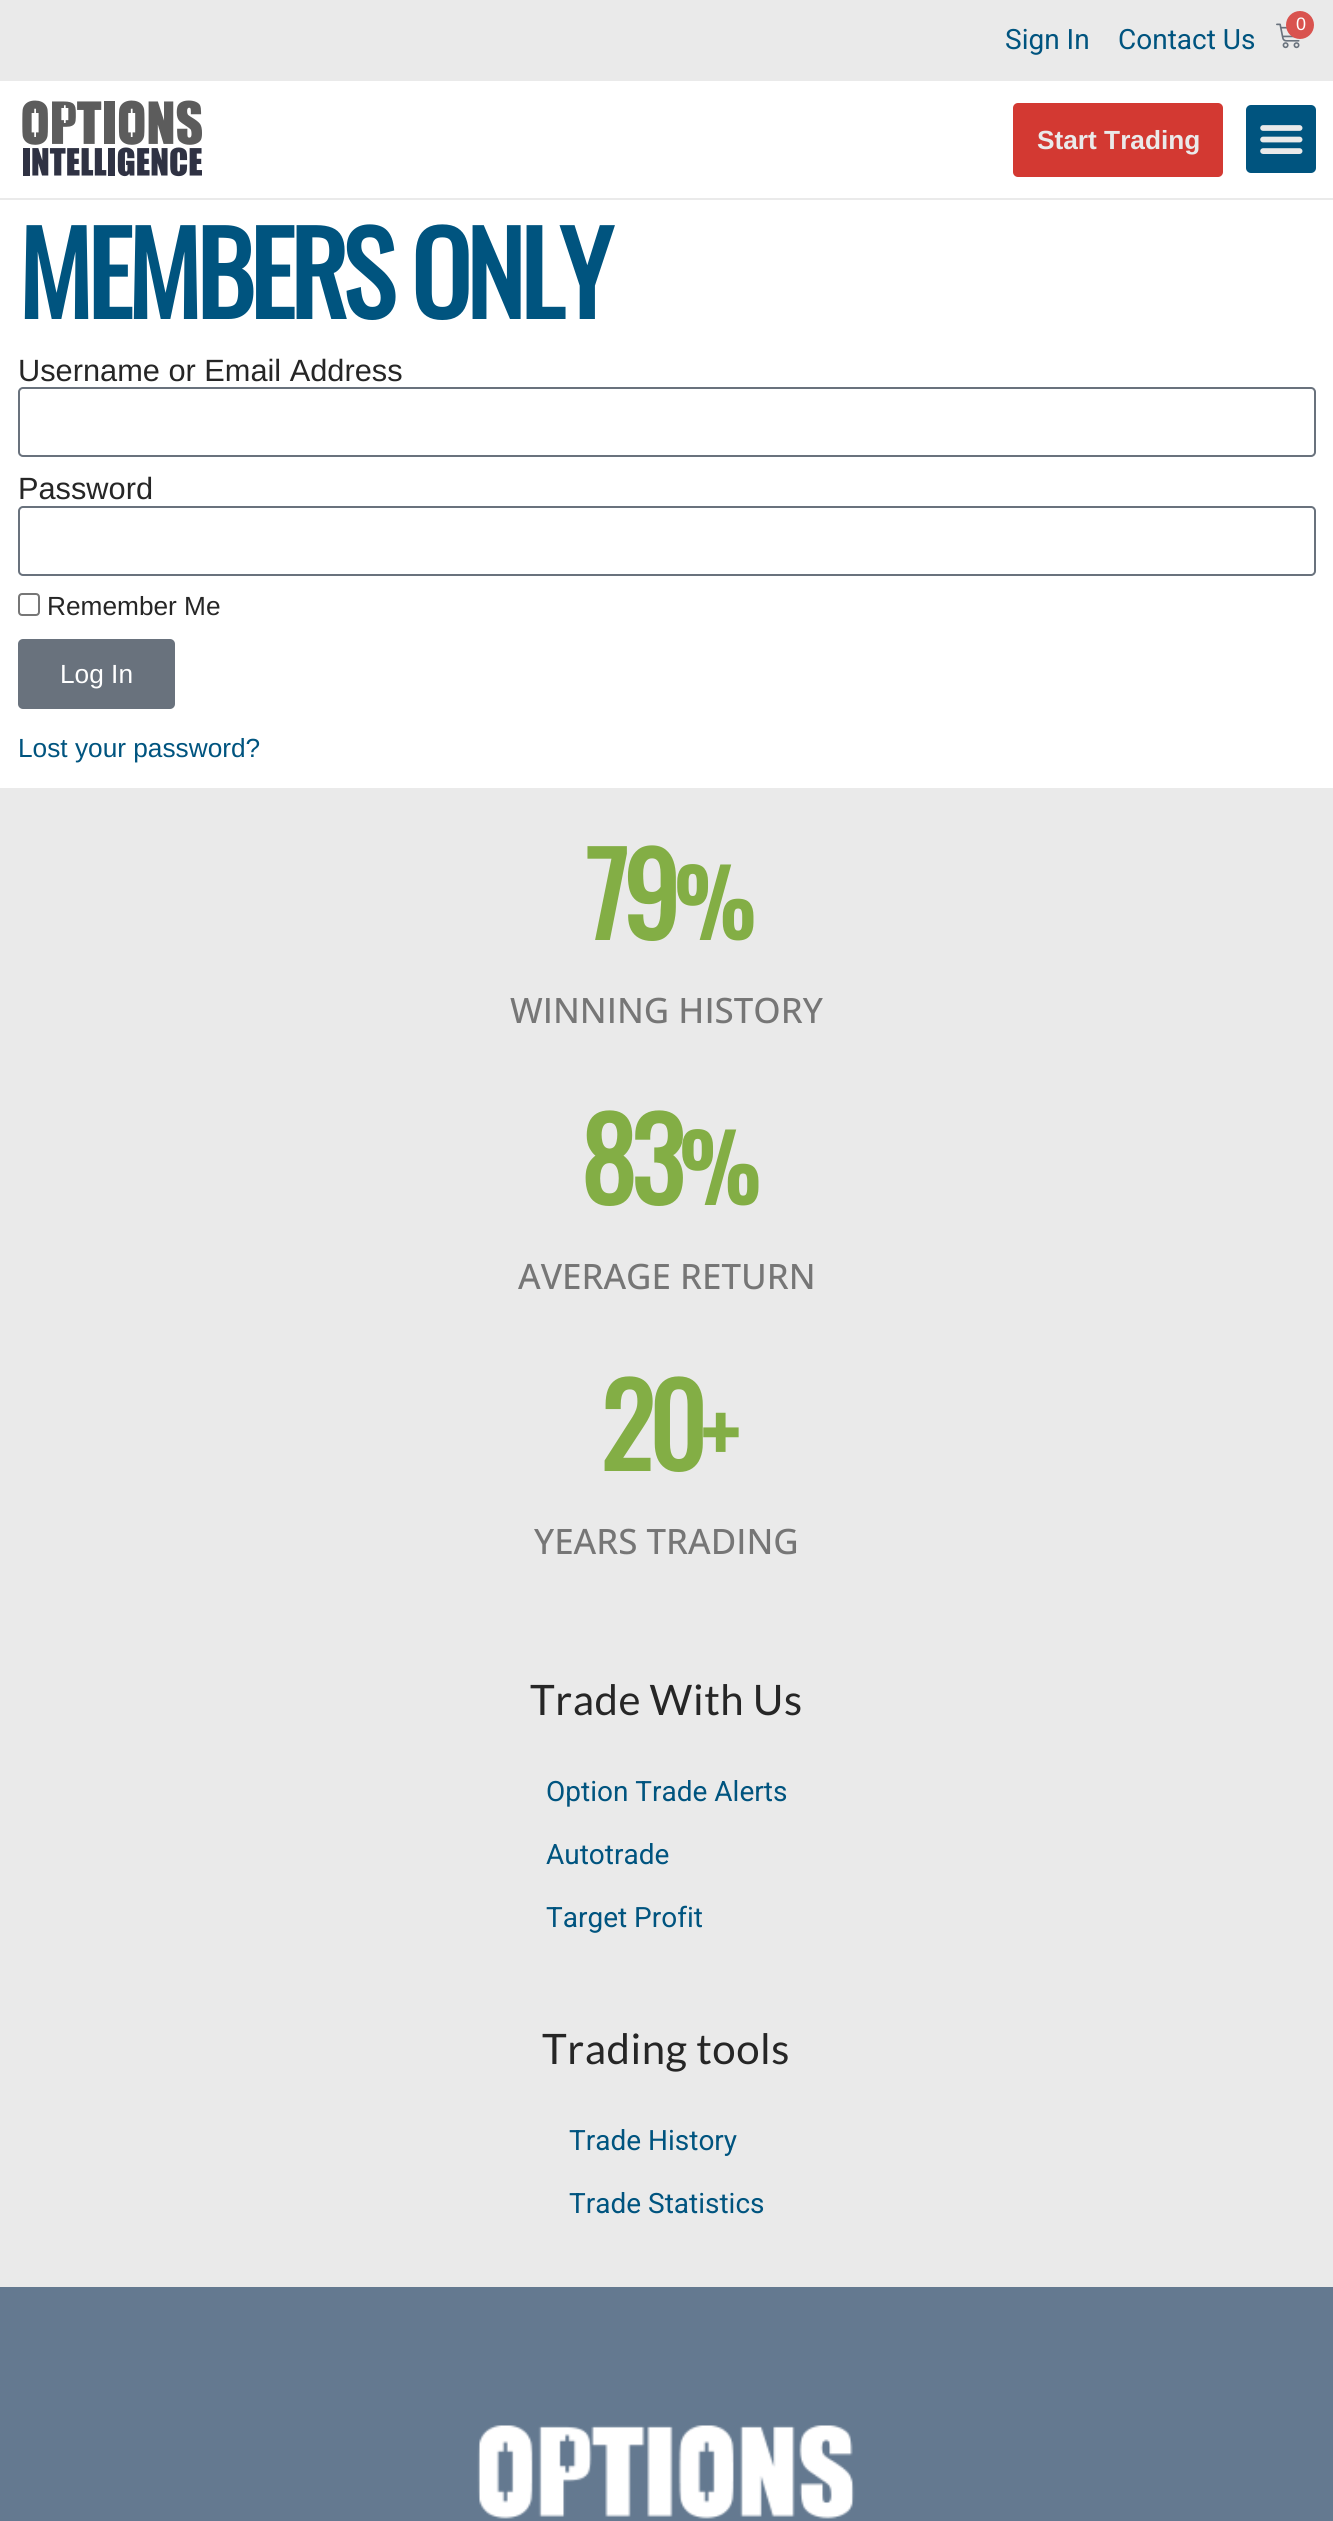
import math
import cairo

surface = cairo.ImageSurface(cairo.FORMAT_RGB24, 1333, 2521)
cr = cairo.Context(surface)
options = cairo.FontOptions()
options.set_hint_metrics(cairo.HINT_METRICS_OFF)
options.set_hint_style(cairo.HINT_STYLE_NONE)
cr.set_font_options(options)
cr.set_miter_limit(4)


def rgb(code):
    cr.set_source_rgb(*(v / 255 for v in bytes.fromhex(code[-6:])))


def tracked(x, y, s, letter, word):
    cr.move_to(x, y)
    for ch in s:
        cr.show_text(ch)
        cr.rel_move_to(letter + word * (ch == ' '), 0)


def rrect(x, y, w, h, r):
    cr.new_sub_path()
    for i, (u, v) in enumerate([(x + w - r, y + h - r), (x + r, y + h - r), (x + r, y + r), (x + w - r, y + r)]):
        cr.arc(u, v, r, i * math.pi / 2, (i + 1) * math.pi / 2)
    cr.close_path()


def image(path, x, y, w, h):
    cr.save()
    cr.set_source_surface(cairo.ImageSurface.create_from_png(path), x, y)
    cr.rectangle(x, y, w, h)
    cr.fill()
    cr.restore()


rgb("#ffffff")
cr.paint()
rgb("#eaeaea")
cr.rectangle(0, 0, 1333, 81)
cr.fill()
image("img/1.png", 1276, 23, 24, 26)
rgb("#d9534f")
cr.arc(1300, 25, 14, 0, 2 * math.pi)
cr.fill()
rgb("#eaeaea")
cr.rectangle(0, 198, 1333, 2)
cr.fill()
image("img/2.png", 22, 100, 180, 77)
rgb("#d33932")
rrect(1013, 103, 210, 74, 5)
cr.fill()
rgb("#00547f")
rrect(1246, 105, 70, 68, 5)
cr.fill()
image("img/3.png", 1260, 125, 43, 29)
rrect(19, 388, 1296, 68, 4)
rgb("#69727d")
cr.stroke()
rrect(19, 507, 1296, 68, 4)
cr.stroke()
rrect(19, 594, 20, 21, 3)
rgb("#767676")
cr.stroke()
rgb("#69727d")
rrect(18, 639, 157, 70, 5)
cr.fill()
rgb("#eaeaea")
cr.rectangle(0, 788, 1333, 1499)
cr.fill()
rgb("#647990")
cr.rectangle(0, 2287, 1333, 234)
cr.fill()
image("img/4.png", 477, 2425, 378, 94)
cr.select_font_face("Liberation Sans")
cr.set_font_size(18)
rgb("#ffffff")
cr.move_to(1296, 30)
cr.show_text("0")
cr.select_font_face("Roboto")
cr.set_font_size(28)
rgb("#00547f")
cr.move_to(1005, 49)
cr.show_text("Sign In")
cr.move_to(1118, 49)
cr.show_text("Contact Us")
cr.select_font_face("Liberation Sans", cairo.FONT_SLANT_NORMAL, cairo.FONT_WEIGHT_BOLD)
cr.set_font_size(26.25)
rgb("#eaeaea")
cr.move_to(1037, 149)
cr.show_text("Start Trading")
cr.select_font_face("Oswald", cairo.FONT_SLANT_NORMAL, cairo.FONT_WEIGHT_BOLD)
cr.set_font_size(112)
rgb("#00547f")
tracked(18, 319, "MEMBERS ONLY", -5.25, 0)
cr.select_font_face("Liberation Sans")
cr.set_font_size(30.75)
rgb("#262626")
cr.move_to(18, 381)
cr.show_text("Username or Email Address")
cr.move_to(18, 499)
cr.show_text("Password")
cr.set_font_size(26.25)
cr.move_to(47, 615)
cr.show_text("Remember Me")
rgb("#ffffff")
cr.move_to(60, 683)
cr.show_text("Log In")
rgb("#00547f")
cr.move_to(18, 757)
cr.show_text("Lost your password?")
cr.select_font_face("Oswald", cairo.FONT_SLANT_NORMAL, cairo.FONT_WEIGHT_BOLD)
cr.set_font_size(112)
rgb("#83ae45")
tracked(585, 940, "79", -5.25, 0)
cr.set_font_size(90)
tracked(674, 940, "%", -5.25, 0)
cr.select_font_face("Open Sans Medium")
cr.set_font_size(35)
rgb("#767676")
cr.move_to(510, 1023)
cr.show_text("WINNING HISTORY")
cr.select_font_face("Oswald", cairo.FONT_SLANT_NORMAL, cairo.FONT_WEIGHT_BOLD)
cr.set_font_size(112)
rgb("#83ae45")
tracked(580, 1205, "83", -5.25, 0)
cr.set_font_size(90)
tracked(679, 1205, "%", -5.25, 0)
cr.select_font_face("Open Sans Medium")
cr.set_font_size(35)
rgb("#767676")
cr.move_to(518, 1289)
cr.show_text("AVERAGE RETURN")
cr.select_font_face("Oswald", cairo.FONT_SLANT_NORMAL, cairo.FONT_WEIGHT_BOLD)
cr.set_font_size(112)
rgb("#83ae45")
tracked(600, 1471, "20", -5.25, 0)
cr.set_font_size(90)
tracked(701, 1471, "+", -5.25, 0)
cr.select_font_face("Open Sans Medium")
cr.set_font_size(35)
rgb("#767676")
cr.move_to(534, 1554)
cr.show_text("YEARS TRADING")
cr.select_font_face("Lato")
cr.set_font_size(42)
rgb("#262626")
tracked(530, 1715, "Trade With Us", 0.5, 0)
cr.select_font_face("Roboto")
cr.set_font_size(28)
rgb("#00547f")
for x, y, s in [
    (546, 1801, "Option Trade Alerts"),
    (546, 1864, "Autotrade"),
    (546, 1927, "Target Profit"),
]:
    cr.move_to(x, y)
    cr.show_text(s)
cr.select_font_face("Lato")
cr.set_font_size(42)
rgb("#262626")
tracked(542, 2064, "Trading tools", 0.5, 0)
cr.select_font_face("Roboto")
cr.set_font_size(28)
rgb("#00547f")
cr.move_to(569, 2150)
cr.show_text("Trade History")
cr.move_to(569, 2213)
cr.show_text("Trade Statistics")
surface.write_to_png("page.png")
